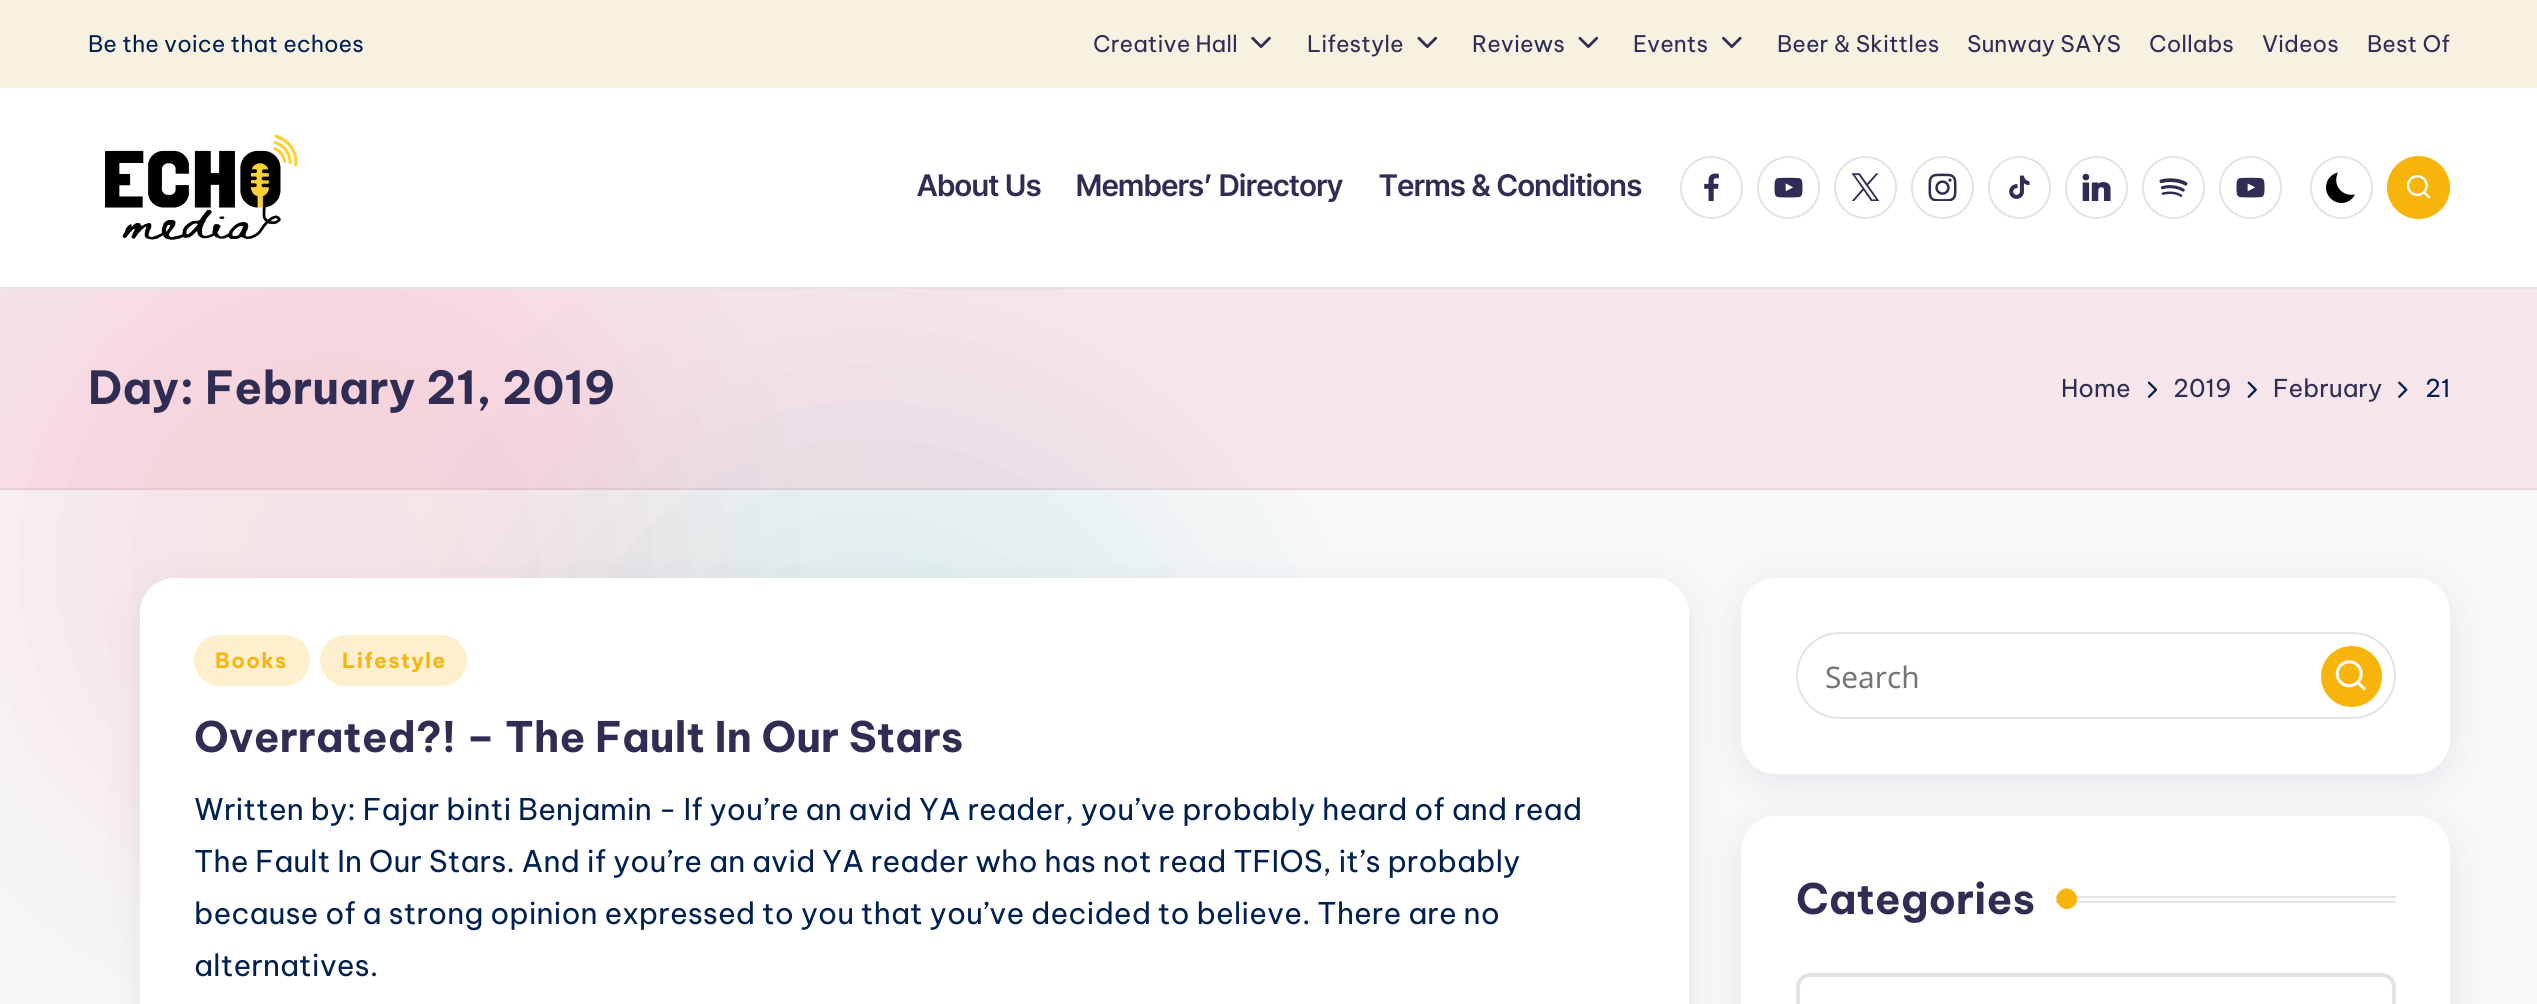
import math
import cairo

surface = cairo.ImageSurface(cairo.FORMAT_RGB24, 2537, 1004)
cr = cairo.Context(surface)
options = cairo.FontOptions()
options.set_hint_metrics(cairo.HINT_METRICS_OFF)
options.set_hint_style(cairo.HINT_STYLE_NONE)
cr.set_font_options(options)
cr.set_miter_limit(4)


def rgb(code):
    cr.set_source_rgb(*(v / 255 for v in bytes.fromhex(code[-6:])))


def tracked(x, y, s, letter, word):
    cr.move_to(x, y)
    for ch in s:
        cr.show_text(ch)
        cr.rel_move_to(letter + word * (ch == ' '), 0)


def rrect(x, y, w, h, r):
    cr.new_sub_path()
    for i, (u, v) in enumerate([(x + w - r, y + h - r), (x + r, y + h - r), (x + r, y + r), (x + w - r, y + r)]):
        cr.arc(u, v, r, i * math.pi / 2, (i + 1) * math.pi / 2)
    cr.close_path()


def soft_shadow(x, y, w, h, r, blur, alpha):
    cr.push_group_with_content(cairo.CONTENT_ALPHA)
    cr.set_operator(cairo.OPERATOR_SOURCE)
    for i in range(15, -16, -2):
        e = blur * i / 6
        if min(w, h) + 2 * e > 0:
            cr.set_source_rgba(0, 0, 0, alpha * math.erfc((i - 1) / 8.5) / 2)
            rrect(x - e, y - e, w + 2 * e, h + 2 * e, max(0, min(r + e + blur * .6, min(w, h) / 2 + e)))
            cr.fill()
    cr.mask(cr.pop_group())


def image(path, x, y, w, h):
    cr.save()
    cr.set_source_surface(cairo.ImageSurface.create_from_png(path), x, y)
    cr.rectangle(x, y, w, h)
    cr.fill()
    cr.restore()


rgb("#f7f8f9")
cr.paint()
rgb("#f5e4e7")
soft_shadow(0, 228, 672, 672, 336, 112, 1)
rgb("#04868b")
soft_shadow(532, 420, 672, 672, 336, 112, 0.1)
rgb("#f7f1e1")
cr.rectangle(0, 0, 2537, 88)
cr.fill()
image("img/1.png", 1251, 36, 20, 12)
image("img/2.png", 1417, 36, 21, 12)
image("img/2.png", 1578, 36, 21, 12)
image("img/3.png", 1722, 36, 20, 12)
rgb("#ffffff")
cr.rectangle(0, 88, 2537, 199)
cr.fill()
rgb("#e3e3e3")
cr.rectangle(0, 287, 2537, 2)
cr.fill()
image("img/4.png", 105, 134, 193, 106)
cr.arc(1711.5, 187.5, 30.5, 0, 2 * math.pi)
cr.stroke()
image("img/5.png", 1704, 173, 15, 28)
cr.arc(1788.5, 187.5, 30.5, 0, 2 * math.pi)
cr.stroke()
image("img/6.png", 1774, 177, 29, 21)
cr.arc(1865.5, 187.5, 30.5, 0, 2 * math.pi)
cr.stroke()
image("img/7.png", 1851, 173, 29, 28)
cr.arc(1942.5, 187.5, 30.5, 0, 2 * math.pi)
cr.stroke()
image("img/8.png", 1928, 173, 29, 28)
cr.arc(2019.5, 187.5, 30.5, 0, 2 * math.pi)
cr.stroke()
image("img/9.png", 2009, 175, 21, 24)
cr.arc(2096.5, 187.5, 30.5, 0, 2 * math.pi)
cr.stroke()
image("img/10.png", 2082, 173, 29, 28)
cr.arc(2173.5, 187.5, 30.5, 0, 2 * math.pi)
cr.stroke()
image("img/11.png", 2159, 178, 29, 19)
cr.arc(2250.5, 187.5, 30.5, 0, 2 * math.pi)
cr.stroke()
image("img/6.png", 2236, 177, 29, 21)
cr.arc(2341.5, 187.5, 30.5, 0, 2 * math.pi)
cr.stroke()
rgb("#000000")
cr.new_path()
cr.move_to(2355, 194.5)
cr.curve_to(2342, 197, 2332, 185, 2338, 172.5)
cr.curve_to(2331, 174, 2326, 180, 2326, 187.5)
cr.curve_to(2326, 196, 2333, 203, 2341.5, 203)
cr.curve_to(2347.5, 203, 2352.5, 199.5, 2355, 194.5)
cr.close_path()
cr.fill()
rgb("#f7b40b")
cr.arc(2418.5, 187.5, 31.5, 0, 2 * math.pi)
cr.fill()
image("img/12.png", 2406, 175, 25, 24)
cr.set_source_rgba(0.957, 0.212, 0.463, 0.1)
cr.rectangle(0, 289, 2537, 201)
cr.fill()
cr.set_source_rgba(0, 0, 0, 0.06)
cr.rectangle(0, 488, 2537, 2)
cr.fill()
image("img/13.png", 2147, 381, 11, 17)
image("img/14.png", 2247, 381, 10, 17)
image("img/15.png", 2398, 381, 10, 17)
rgb("#454360")
soft_shadow(140, 586, 1549, 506, 35, 17.5, 0.1)
rgb("#ffffff")
rrect(140, 578, 1549, 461, 35)
cr.fill()
rgb("#fef0cf")
rrect(194, 635, 116, 51, 25.5)
cr.fill()
rrect(320, 635, 147, 51, 25.5)
cr.fill()
rgb("#454360")
soft_shadow(1741, 586, 709, 196, 35, 17.5, 0.1)
rgb("#ffffff")
rrect(1741, 578, 709, 196, 35)
cr.fill()
rrect(1797, 633, 598, 85, 42.5)
rgb("#e3e3e3")
cr.stroke()
rgb("#f7b40b")
cr.arc(2351.5, 676.5, 30.5, 0, 2 * math.pi)
cr.fill()
image("img/16.png", 2335, 660, 31, 31)
rgb("#454360")
soft_shadow(1741, 824, 709, 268, 35, 17.5, 0.1)
rgb("#ffffff")
rrect(1741, 816, 709, 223, 35)
cr.fill()
rgb("#e3e3e3")
cr.rectangle(2056, 896, 340, 2)
cr.fill()
cr.rectangle(2056, 901, 340, 2)
cr.fill()
rgb("#f7b40b")
cr.new_path()
cr.move_to(2059.5, 891.5)
cr.curve_to(2069, 882, 2083.5, 896.5, 2074, 906)
cr.curve_to(2064.5, 915.5, 2050, 901, 2059.5, 891.5)
cr.close_path()
cr.fill()
rrect(1798, 975, 596, 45, 12)
rgb("#e3e3e3")
cr.set_line_width(4)
cr.stroke()
cr.select_font_face("Be Vietnam Pro")
cr.set_font_size(22.75)
rgb("#002050")
cr.move_to(88, 52)
cr.show_text("Be the voice that echoes")
rgb("#302d55")
for x, y, s in [
    (1093, 52, "Creative Hall"),
    (1307, 52, "Lifestyle"),
    (1472, 52, "Reviews"),
    (1633, 52, "Events"),
    (1777, 52, "Beer & Skittles"),
    (1967, 52, "Sunway SAYS"),
    (2149, 52, "Collabs"),
    (2262, 52, "Videos"),
    (2367, 52, "Best Of"),
]:
    cr.move_to(x, y)
    cr.show_text(s)
cr.select_font_face("Inter Tight SemiBold")
cr.set_font_size(29.75)
for x, y, s in [
    (917, 196, "About Us"),
    (1076, 196, "Members’ Directory"),
    (1379, 196, "Terms & Conditions"),
]:
    cr.move_to(x, y)
    cr.show_text(s)
cr.select_font_face("Be Vietnam Pro", cairo.FONT_SLANT_NORMAL, cairo.FONT_WEIGHT_BOLD)
cr.set_font_size(45.5)
cr.move_to(88, 404)
cr.show_text("Day: February 21, 2019")
cr.select_font_face("Be Vietnam Pro")
cr.set_font_size(24.5)
for x, y, s in [
    (2061, 397, "Home"),
    (2173, 397, "2019"),
    (2273, 397, "February"),
]:
    cr.move_to(x, y)
    cr.show_text(s)
rgb("#002050")
cr.move_to(2425, 397)
cr.show_text("21")
cr.select_font_face("Be Vietnam Pro", cairo.FONT_SLANT_NORMAL, cairo.FONT_WEIGHT_BOLD)
cr.set_font_size(21)
rgb("#f7b40b")
tracked(215, 668, "Books", 1.25, 0)
tracked(342, 668, "Lifestyle", 1.25, 0)
cr.set_font_size(42)
rgb("#302d55")
cr.move_to(194, 752)
cr.show_text("Overrated?! – The Fault In Our Stars")
cr.select_font_face("Be Vietnam Pro")
cr.set_font_size(29.75)
rgb("#002050")
for x, y, s in [
    (194, 820, "Written by: Fajar binti Benjamin - If you’re an avid YA reader, you’ve probably heard of and read"),
    (194, 872, "The Fault In Our Stars. And if you’re an avid YA reader who has not read TFIOS, it’s probably"),
    (194, 924, "because of a strong opinion expressed to you that you’ve decided to believe. There are no"),
    (194, 976, "alternatives."),
]:
    cr.move_to(x, y)
    cr.show_text(s)
cr.select_font_face("Noto Sans")
rgb("#757575")
cr.move_to(1825, 688)
cr.show_text("Search")
cr.select_font_face("Be Vietnam Pro", cairo.FONT_SLANT_NORMAL, cairo.FONT_WEIGHT_BOLD)
cr.set_font_size(42)
rgb("#302d55")
cr.move_to(1796, 914)
cr.show_text("Categories")
surface.write_to_png("page.png")
